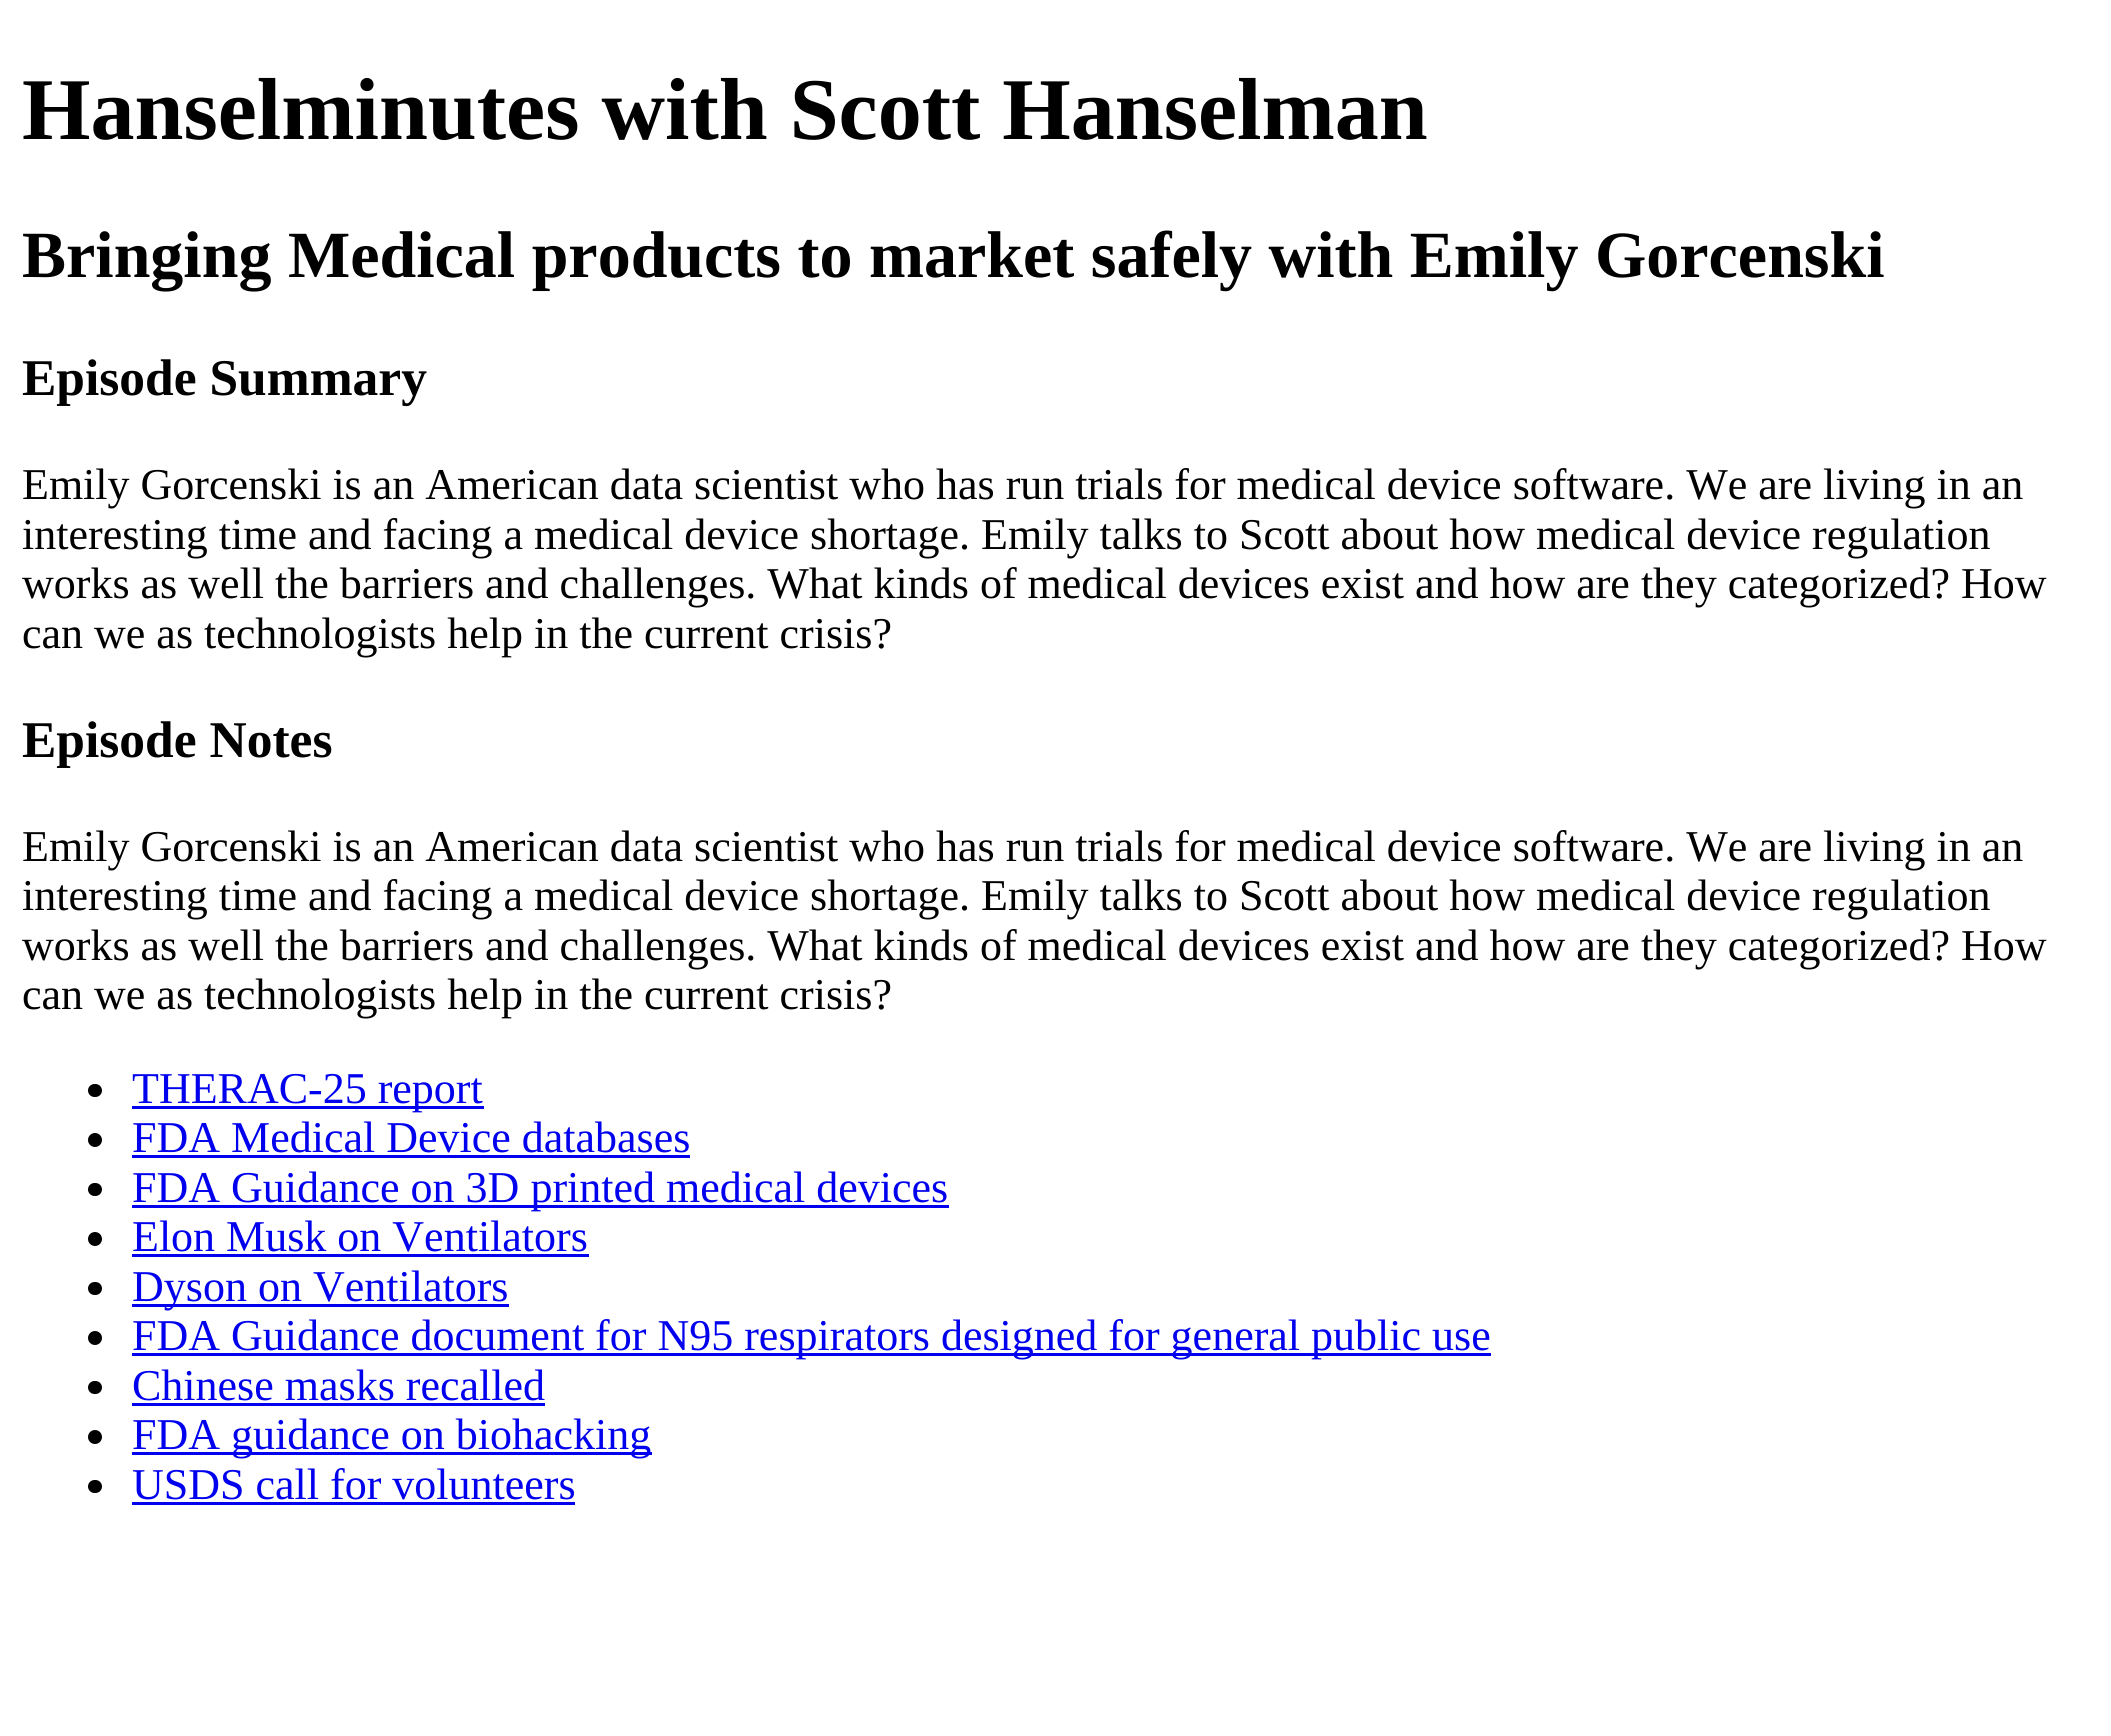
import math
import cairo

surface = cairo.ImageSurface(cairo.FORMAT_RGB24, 2111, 1736)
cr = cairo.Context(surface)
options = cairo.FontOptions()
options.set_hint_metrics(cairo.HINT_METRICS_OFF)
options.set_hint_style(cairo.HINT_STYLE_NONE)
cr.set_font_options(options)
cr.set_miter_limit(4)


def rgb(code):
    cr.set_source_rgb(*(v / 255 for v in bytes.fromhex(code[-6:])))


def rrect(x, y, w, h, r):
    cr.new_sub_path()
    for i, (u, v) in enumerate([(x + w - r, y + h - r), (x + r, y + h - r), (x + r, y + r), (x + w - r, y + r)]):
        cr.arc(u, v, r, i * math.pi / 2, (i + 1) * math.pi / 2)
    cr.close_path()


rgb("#ffffff")
cr.paint()
rgb("#000000")
rrect(88, 1084, 14, 13, 6.5)
cr.fill()
rgb("#0000ee")
cr.rectangle(132, 1106, 352, 3)
cr.fill()
rgb("#000000")
cr.arc(95, 1140, 7, 0, 2 * math.pi)
cr.fill()
rgb("#0000ee")
cr.rectangle(132, 1155, 558, 3)
cr.fill()
rgb("#000000")
rrect(88, 1183, 14, 13, 6.5)
cr.fill()
rgb("#0000ee")
cr.rectangle(132, 1205, 817, 3)
cr.fill()
rgb("#000000")
cr.arc(95, 1239, 7, 0, 2 * math.pi)
cr.fill()
rgb("#0000ee")
cr.rectangle(132, 1254, 457, 3)
cr.fill()
rgb("#000000")
rrect(88, 1282, 14, 13, 6.5)
cr.fill()
rgb("#0000ee")
cr.rectangle(132, 1304, 377, 3)
cr.fill()
rgb("#000000")
cr.arc(95, 1338, 7, 0, 2 * math.pi)
cr.fill()
rgb("#0000ee")
cr.rectangle(132, 1353, 1359, 3)
cr.fill()
rgb("#000000")
rrect(88, 1381, 14, 13, 6.5)
cr.fill()
rgb("#0000ee")
cr.rectangle(132, 1403, 413, 3)
cr.fill()
rgb("#000000")
cr.arc(95, 1437, 7, 0, 2 * math.pi)
cr.fill()
rgb("#0000ee")
cr.rectangle(132, 1452, 520, 3)
cr.fill()
rgb("#000000")
rrect(88, 1480, 14, 13, 6.5)
cr.fill()
rgb("#0000ee")
cr.rectangle(132, 1502, 443, 3)
cr.fill()
cr.select_font_face("Liberation Serif", cairo.FONT_SLANT_NORMAL, cairo.FONT_WEIGHT_BOLD)
cr.set_font_size(88)
rgb("#000000")
cr.move_to(22, 139)
cr.show_text("Hanselminutes with Scott Hanselman")
cr.set_font_size(66)
cr.move_to(22, 277)
cr.show_text("Bringing Medical products to market safely with Emily Gorcenski")
cr.set_font_size(51.5)
cr.move_to(22, 395)
cr.show_text("Episode Summary")
cr.select_font_face("Liberation Serif")
cr.set_font_size(44)
for x, y, s in [
    (22, 499, "Emily Gorcenski is an American data scientist who has run trials for medical device software. We are living in an"),
    (22, 549, "interesting time and facing a medical device shortage. Emily talks to Scott about how medical device regulation"),
    (22, 598, "works as well the barriers and challenges. What kinds of medical devices exist and how are they categorized? How"),
    (22, 648, "can we as technologists help in the current crisis?"),
]:
    cr.move_to(x, y)
    cr.show_text(s)
cr.select_font_face("Liberation Serif", cairo.FONT_SLANT_NORMAL, cairo.FONT_WEIGHT_BOLD)
cr.set_font_size(51.5)
cr.move_to(22, 757)
cr.show_text("Episode Notes")
cr.select_font_face("Liberation Serif")
cr.set_font_size(44)
for x, y, s in [
    (22, 861, "Emily Gorcenski is an American data scientist who has run trials for medical device software. We are living in an"),
    (22, 910, "interesting time and facing a medical device shortage. Emily talks to Scott about how medical device regulation"),
    (22, 960, "works as well the barriers and challenges. What kinds of medical devices exist and how are they categorized? How"),
    (22, 1009, "can we as technologists help in the current crisis?"),
]:
    cr.move_to(x, y)
    cr.show_text(s)
rgb("#0000ee")
for x, y, s in [
    (132, 1103, "THERAC-25 report"),
    (132, 1152, "FDA Medical Device databases"),
    (132, 1202, "FDA Guidance on 3D printed medical devices"),
    (132, 1251, "Elon Musk on Ventilators"),
    (132, 1301, "Dyson on Ventilators"),
    (132, 1350, "FDA Guidance document for N95 respirators designed for general public use"),
    (132, 1400, "Chinese masks recalled"),
    (132, 1449, "FDA guidance on biohacking"),
    (132, 1499, "USDS call for volunteers"),
]:
    cr.move_to(x, y)
    cr.show_text(s)
surface.write_to_png("page.png")
